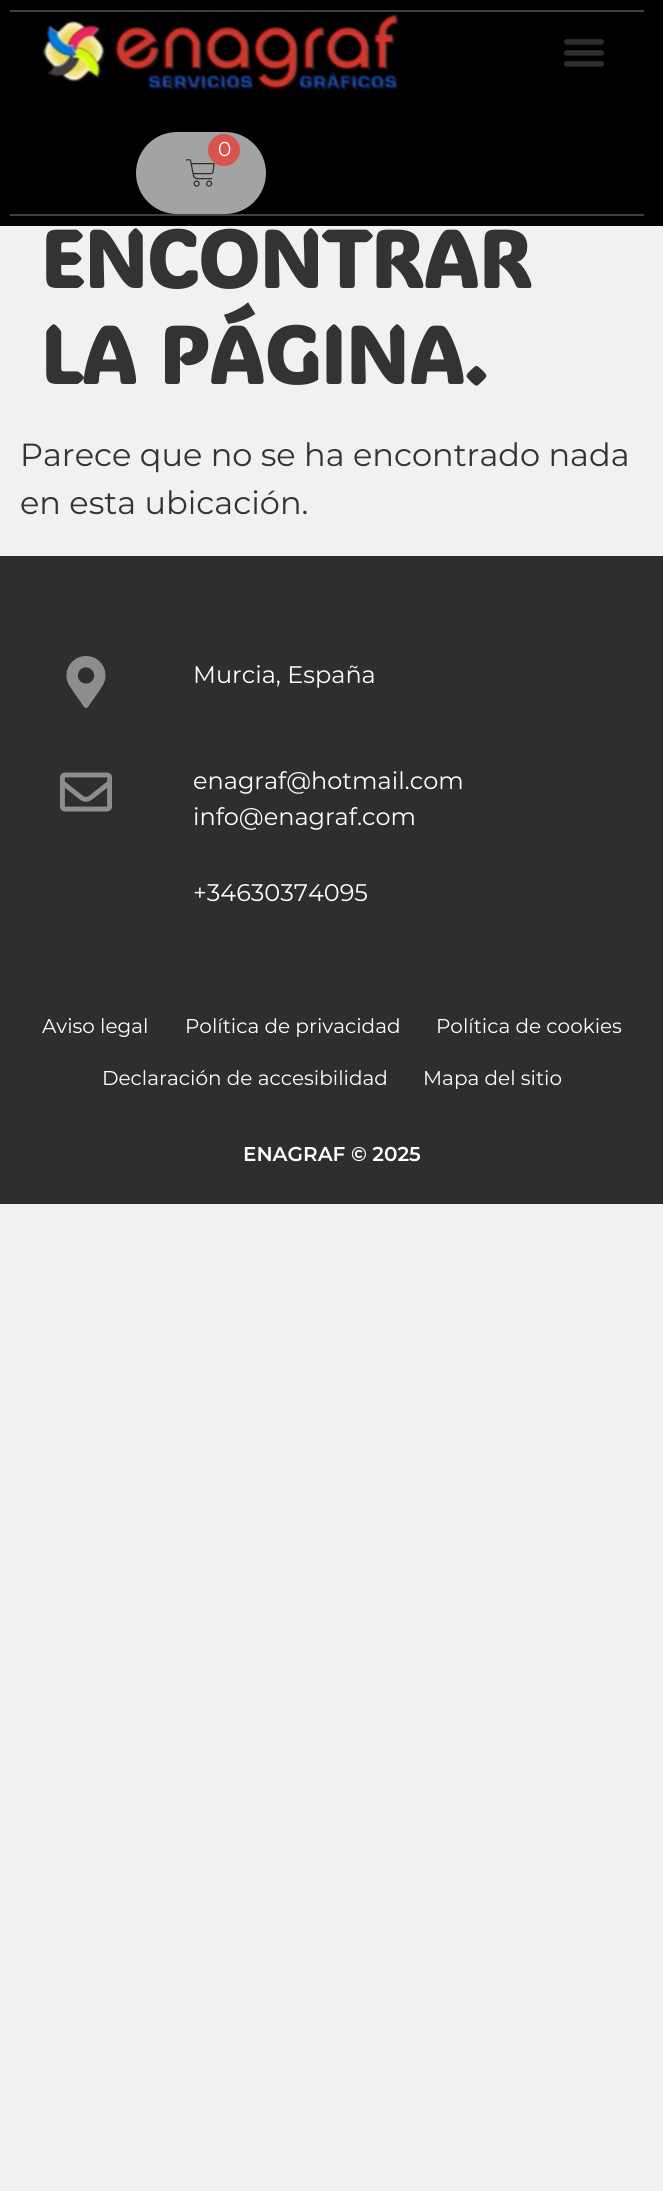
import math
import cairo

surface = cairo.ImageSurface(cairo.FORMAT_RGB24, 663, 2191)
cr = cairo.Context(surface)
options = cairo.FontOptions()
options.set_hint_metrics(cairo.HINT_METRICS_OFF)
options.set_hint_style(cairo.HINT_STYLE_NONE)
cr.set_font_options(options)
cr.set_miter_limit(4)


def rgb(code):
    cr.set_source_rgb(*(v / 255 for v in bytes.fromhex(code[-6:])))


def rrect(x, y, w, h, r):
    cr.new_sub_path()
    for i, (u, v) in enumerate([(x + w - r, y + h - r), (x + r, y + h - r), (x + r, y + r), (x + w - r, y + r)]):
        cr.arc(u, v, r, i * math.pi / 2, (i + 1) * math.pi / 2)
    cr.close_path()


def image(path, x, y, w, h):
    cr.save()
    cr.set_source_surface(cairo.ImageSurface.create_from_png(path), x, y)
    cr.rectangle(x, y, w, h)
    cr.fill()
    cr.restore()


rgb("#f2f0f0")
cr.paint()
for x, y, w, h, color in [
    (0, 0, 663, 226, "#000000"),
    (10, 10, 634, 2, "#404040"),
    (10, 214, 634, 2, "#404040"),
]:
    rgb(color)
    cr.rectangle(x, y, w, h)
    cr.fill()
image("img/1.png", 42, 14, 357, 77)
image("img/2.png", 564, 39, 40, 28)
rgb("#a3a3a3")
rrect(136, 132, 130, 82, 41)
cr.fill()
image("img/3.png", 186, 159, 29, 28)
rgb("#d9534f")
cr.arc(224, 150, 16, 0, 2 * math.pi)
cr.fill()
rgb("#2f2e2e")
cr.rectangle(0, 556, 663, 648)
cr.fill()
image("img/4.png", 66, 656, 40, 52)
image("img/5.png", 60, 772, 52, 40)
cr.select_font_face("Red Hat Display")
cr.set_font_size(20)
rgb("#ffffff")
cr.move_to(218, 156)
cr.show_text("0")
cr.select_font_face("ADLaM Display", cairo.FONT_SLANT_NORMAL, cairo.FONT_WEIGHT_BOLD)
cr.set_font_size(80)
rgb("#333333")
cr.move_to(40, 288)
cr.show_text("ENCONTRAR")
cr.move_to(40, 384)
cr.show_text("LA PÁGINA.")
cr.select_font_face("Montserrat")
cr.set_font_size(32)
cr.move_to(20, 466)
cr.show_text("Parece que no se ha encontrado nada")
cr.move_to(20, 514)
cr.show_text("en esta ubicación.")
cr.set_font_size(24)
rgb("#ffffff")
for x, y, s in [
    (193, 683, "Murcia, España"),
    (193, 789, "enagraf@hotmail.com"),
    (193, 825, "info@enagraf.com"),
    (193, 901, "+34630374095"),
]:
    cr.move_to(x, y)
    cr.show_text(s)
cr.set_font_size(20)
for x, y, s in [
    (42, 1033, "Aviso legal"),
    (185, 1033, "Política de privacidad"),
    (436, 1033, "Política de cookies"),
    (102, 1085, "Declaración de accesibilidad"),
    (423, 1085, "Mapa del sitio"),
]:
    cr.move_to(x, y)
    cr.show_text(s)
cr.select_font_face("Montserrat SemiBold")
cr.move_to(243, 1161)
cr.show_text("ENAGRAF © 2025")
surface.write_to_png("page.png")
